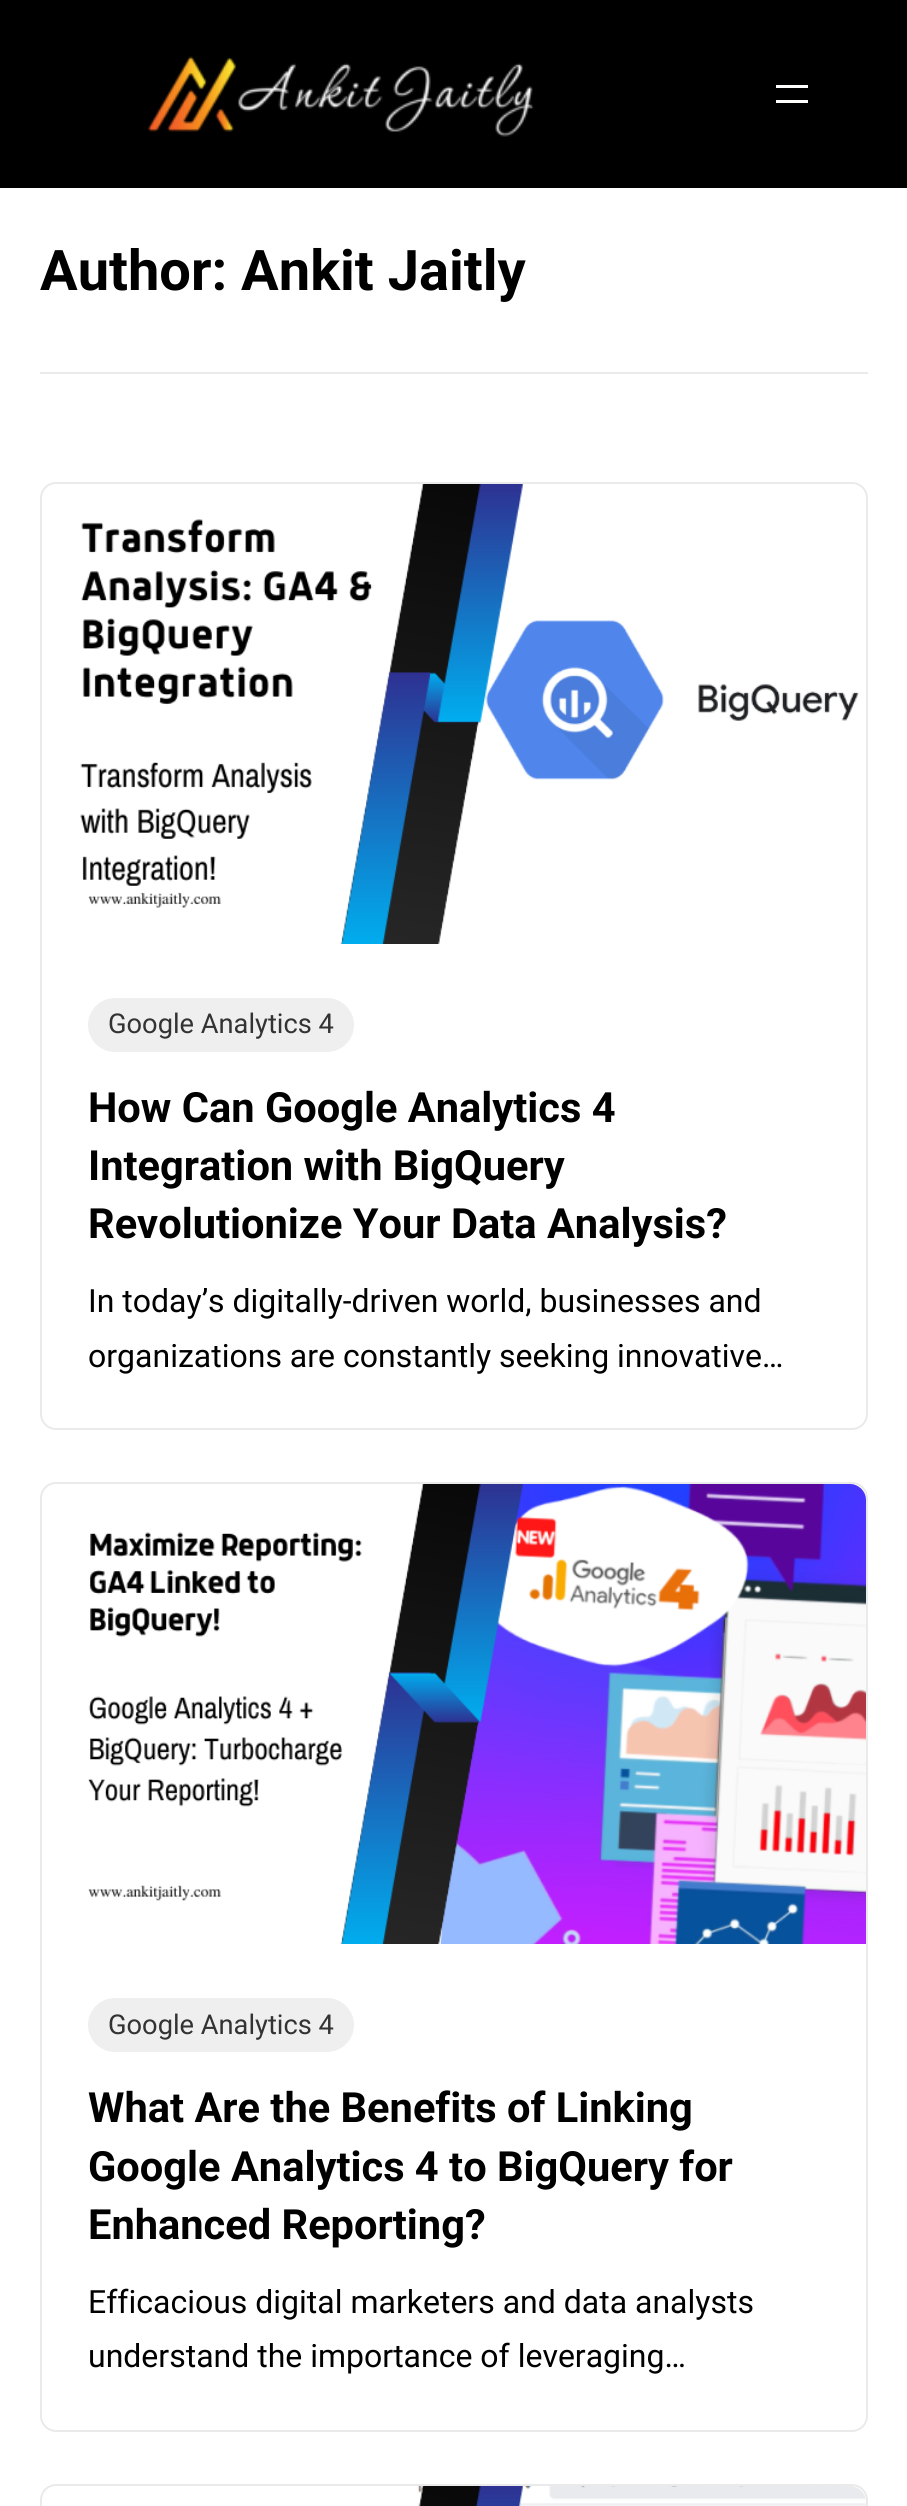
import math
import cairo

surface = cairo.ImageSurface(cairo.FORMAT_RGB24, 907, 2506)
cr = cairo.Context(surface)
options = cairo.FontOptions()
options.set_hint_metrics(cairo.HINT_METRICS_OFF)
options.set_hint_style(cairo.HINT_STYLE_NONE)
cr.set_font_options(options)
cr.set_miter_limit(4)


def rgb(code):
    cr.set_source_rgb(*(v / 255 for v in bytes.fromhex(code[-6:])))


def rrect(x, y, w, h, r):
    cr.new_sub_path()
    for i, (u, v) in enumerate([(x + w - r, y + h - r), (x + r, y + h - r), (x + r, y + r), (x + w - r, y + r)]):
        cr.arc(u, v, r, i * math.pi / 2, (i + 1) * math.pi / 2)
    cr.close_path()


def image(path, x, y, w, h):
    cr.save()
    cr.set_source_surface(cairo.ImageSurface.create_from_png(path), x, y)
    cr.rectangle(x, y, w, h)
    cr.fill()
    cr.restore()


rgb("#ffffff")
cr.paint()
rgb("#000001")
cr.rectangle(0, 0, 907, 188)
cr.fill()
image("img/1.png", 148, 56, 386, 81)
for x, y, w, h, color in [
    (776, 85, 32, 3, "#fffffe"),
    (776, 100, 32, 3, "#fffffe"),
    (40, 372, 828, 2, "#eaeaea"),
]:
    rgb(color)
    cr.rectangle(x, y, w, h)
    cr.fill()
rrect(41, 483, 826, 946, 15)
cr.stroke()
image("img/2.png", 80, 484, 779, 460)
rgb("#efefef")
rrect(88, 998, 266, 54, 27)
cr.fill()
rrect(41, 1483, 826, 948, 15)
rgb("#eaeaea")
cr.stroke()
image("img/3.png", 87, 1484, 779, 460)
rgb("#efefef")
rrect(88, 1998, 266, 54, 27)
cr.fill()
rrect(41, 2485, 826, 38, 15)
rgb("#eaeaea")
cr.stroke()
image("img/4.png", 417, 2486, 449, 20)
cr.select_font_face("Roboto", cairo.FONT_SLANT_NORMAL, cairo.FONT_WEIGHT_BOLD)
cr.set_font_size(56)
rgb("#000001")
cr.move_to(40, 290)
cr.show_text("Author: Ankit Jaitly")
cr.select_font_face("Roboto")
cr.set_font_size(27.25)
rgb("#333334")
cr.move_to(108, 1033)
cr.show_text("Google Analytics 4")
cr.select_font_face("Roboto", cairo.FONT_SLANT_NORMAL, cairo.FONT_WEIGHT_BOLD)
cr.set_font_size(41.6)
rgb("#000001")
for x, y, s in [
    (88, 1122, "How Can Google Analytics 4"),
    (88, 1180, "Integration with BigQuery"),
    (88, 1238, "Revolutionize Your Data Analysis?"),
]:
    cr.move_to(x, y)
    cr.show_text(s)
cr.select_font_face("Roboto")
cr.set_font_size(32)
cr.move_to(88, 1312)
cr.show_text("In today’s digitally-driven world, businesses and")
cr.move_to(88, 1367)
cr.show_text("organizations are constantly seeking innovative…")
cr.set_font_size(27.25)
rgb("#333334")
cr.move_to(108, 2034)
cr.show_text("Google Analytics 4")
cr.select_font_face("Roboto", cairo.FONT_SLANT_NORMAL, cairo.FONT_WEIGHT_BOLD)
cr.set_font_size(41.6)
rgb("#000001")
for x, y, s in [
    (88, 2122, "What Are the Benefits of Linking"),
    (88, 2181, "Google Analytics 4 to BigQuery for"),
    (88, 2239, "Enhanced Reporting?"),
]:
    cr.move_to(x, y)
    cr.show_text(s)
cr.select_font_face("Roboto")
cr.set_font_size(32)
cr.move_to(88, 2313)
cr.show_text("Efficacious digital marketers and data analysts")
cr.move_to(88, 2367)
cr.show_text("understand the importance of leveraging…")
surface.write_to_png("page.png")
